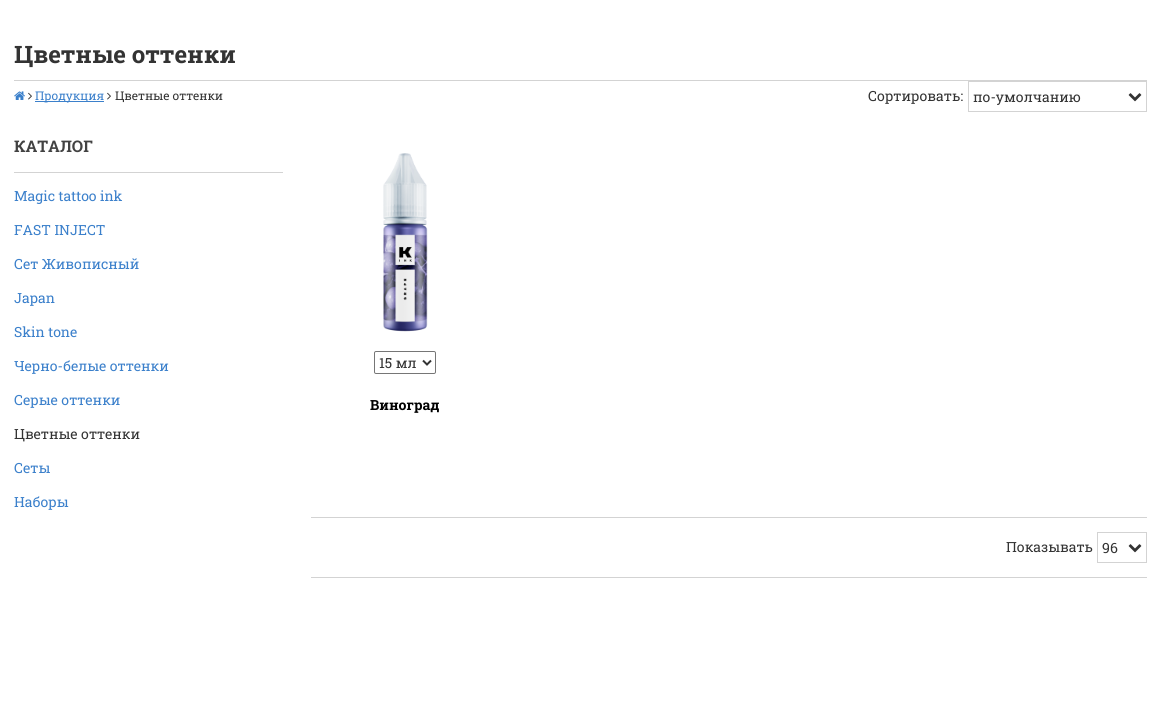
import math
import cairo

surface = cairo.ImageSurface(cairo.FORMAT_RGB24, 1161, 724)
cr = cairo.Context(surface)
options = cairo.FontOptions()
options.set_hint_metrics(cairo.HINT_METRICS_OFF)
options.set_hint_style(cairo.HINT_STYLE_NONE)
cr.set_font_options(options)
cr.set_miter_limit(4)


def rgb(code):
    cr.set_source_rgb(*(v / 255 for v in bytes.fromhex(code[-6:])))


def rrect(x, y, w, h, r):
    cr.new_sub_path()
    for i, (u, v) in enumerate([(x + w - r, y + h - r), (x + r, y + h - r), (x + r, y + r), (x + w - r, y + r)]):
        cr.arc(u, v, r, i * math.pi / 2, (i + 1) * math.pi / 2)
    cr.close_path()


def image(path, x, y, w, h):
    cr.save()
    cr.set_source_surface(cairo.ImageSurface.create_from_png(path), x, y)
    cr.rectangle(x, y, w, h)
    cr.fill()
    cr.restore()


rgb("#ffffff")
cr.paint()
rgb("#d3d3d3")
cr.rectangle(14, 80, 1133, 1)
cr.fill()
image("img/1.png", 14, 91, 11, 9)
image("img/2.png", 28, 92, 4, 8)
rgb("#3b80cb")
cr.rectangle(35, 101, 69, 1)
cr.fill()
image("img/2.png", 107, 92, 4, 8)
cr.rectangle(968.5, 81.5, 178, 30)
rgb("#d3d3d3")
cr.set_line_width(1)
cr.stroke()
image("img/3.png", 1128, 93, 14, 9)
cr.rectangle(14, 172, 269, 1)
cr.fill()
image("img/4.png", 383, 153, 45, 179)
rrect(374.5, 351.5, 61, 22, 1.5)
rgb("#767676")
cr.stroke()
cr.new_path()
cr.move_to(423, 360.5)
cr.line_to(427, 364.5)
cr.line_to(431, 360.5)
rgb("#333333")
cr.set_line_width(2)
cr.stroke()
rgb("#d3d3d3")
cr.rectangle(311, 517, 836, 1)
cr.fill()
cr.rectangle(311, 577, 836, 1)
cr.fill()
cr.rectangle(1097.5, 532.5, 49, 30)
cr.set_line_width(1)
cr.stroke()
image("img/3.png", 1128, 544, 14, 9)
cr.select_font_face("Roboto Slab", cairo.FONT_SLANT_NORMAL, cairo.FONT_WEIGHT_BOLD)
cr.set_font_size(24)
rgb("#333333")
cr.move_to(14, 63)
cr.show_text("Цветные оттенки")
cr.select_font_face("Roboto Slab")
cr.set_font_size(12)
rgb("#3b80cb")
cr.move_to(35, 100)
cr.show_text("Продукция")
rgb("#333333")
cr.move_to(115, 100)
cr.show_text("Цветные оттенки")
cr.set_font_size(14)
cr.move_to(868, 101)
cr.show_text("Сортировать:")
cr.move_to(973, 102)
cr.show_text("по-умолчанию")
cr.select_font_face("Roboto Slab", cairo.FONT_SLANT_NORMAL, cairo.FONT_WEIGHT_BOLD)
cr.set_font_size(16)
rgb("#424242")
cr.move_to(14, 152)
cr.show_text("КАТАЛОГ")
cr.select_font_face("Roboto Slab")
cr.set_font_size(14)
rgb("#3b80cb")
for x, y, s in [
    (14, 201, "Magic tattoo ink"),
    (14, 235, "FAST INJECT"),
    (14, 269, "Сет Живописный"),
    (14, 303, "Japan"),
    (14, 337, "Skin tone"),
    (14, 371, "Черно-белые оттенки"),
    (14, 405, "Серые оттенки"),
]:
    cr.move_to(x, y)
    cr.show_text(s)
rgb("#333333")
cr.move_to(14, 439)
cr.show_text("Цветные оттенки")
rgb("#3b80cb")
cr.move_to(14, 473)
cr.show_text("Сеты")
cr.move_to(14, 507)
cr.show_text("Наборы")
rgb("#333333")
cr.move_to(379, 368)
cr.show_text("15 мл")
cr.select_font_face("Roboto Slab", cairo.FONT_SLANT_NORMAL, cairo.FONT_WEIGHT_BOLD)
rgb("#000000")
cr.move_to(370, 410)
cr.show_text("Виноград")
cr.select_font_face("Roboto Slab")
rgb("#333333")
cr.move_to(1006, 552)
cr.show_text("Показывать")
cr.move_to(1102, 553)
cr.show_text("96")
surface.write_to_png("page.png")
